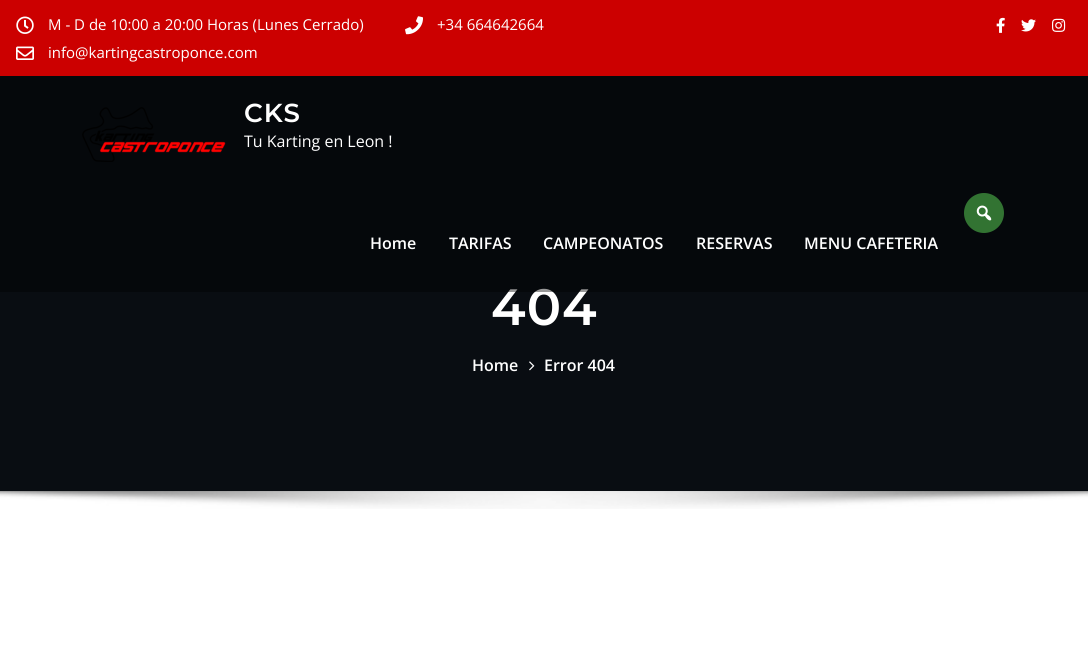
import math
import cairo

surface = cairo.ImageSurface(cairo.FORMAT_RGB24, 1088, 665)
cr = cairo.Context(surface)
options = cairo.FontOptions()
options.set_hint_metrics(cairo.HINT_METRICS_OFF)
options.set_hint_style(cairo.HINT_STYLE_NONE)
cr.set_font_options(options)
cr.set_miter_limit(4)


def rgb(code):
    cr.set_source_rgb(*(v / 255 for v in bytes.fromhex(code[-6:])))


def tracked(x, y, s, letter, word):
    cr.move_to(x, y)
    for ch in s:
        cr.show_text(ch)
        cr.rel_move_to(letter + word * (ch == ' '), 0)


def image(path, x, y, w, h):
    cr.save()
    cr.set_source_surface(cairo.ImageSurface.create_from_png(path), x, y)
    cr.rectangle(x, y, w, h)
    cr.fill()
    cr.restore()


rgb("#ffffff")
cr.paint()
rgb("#cc0000")
cr.rectangle(0, 0, 1088, 76)
cr.fill()
image("img/1.png", 16, 16, 18, 18)
image("img/2.png", 405, 16, 18, 19)
image("img/3.png", 16, 46, 18, 14)
image("img/4.png", 996, 17, 9, 16)
image("img/5.png", 1021, 19, 15, 13)
image("img/6.png", 1052, 18, 14, 14)
rgb("#090d12")
cr.rectangle(0, 76, 1088, 415)
cr.fill()
image("img/9.png", 529, 361, 6, 10)
image("img/10.png", 0, 491, 1088, 18)
cr.select_font_face("Open Sans")
cr.set_font_size(15)
rgb("#ffffff")
for x, y, s in [
    (48, 30, "M - D de 10:00 a 20:00 Horas (Lunes Cerrado)"),
    (437, 30, "+34 664642664"),
    (48, 58, "info@kartingcastroponce.com"),
]:
    cr.move_to(x, y)
    cr.show_text(s)
cr.select_font_face("Montserrat SemiBold")
cr.set_font_size(51)
tracked(491, 325, "404", 1, 0)
cr.set_source_rgba(0, 0, 0, 0.4)
cr.rectangle(0, 76, 1088, 216)
cr.fill()
rgb("#327332")
cr.arc(984, 213, 20, 0, 2 * math.pi)
cr.fill()
image("img/8.png", 976, 205, 16, 16)
cr.select_font_face("Open Sans SemiBold")
cr.set_font_size(16)
rgb("#ffffff")
for x, y, s in [
    (696, 249, "RESERVAS"),
    (543, 249, "CAMPEONATOS"),
    (449, 249, "TARIFAS"),
    (804, 249, "MENU CAFETERIA"),
    (370, 249, "Home"),
]:
    cr.move_to(x, y)
    cr.show_text(s)
cr.select_font_face("Open Sans")
cr.move_to(244, 147)
cr.show_text("Tu Karting en Leon !")
cr.select_font_face("Montserrat SemiBold")
cr.set_font_size(26)
tracked(244, 122, "CKS", 1, 0)
image("img/7.png", 82, 107, 144, 55)
cr.select_font_face("Open Sans SemiBold")
cr.set_font_size(16)
cr.move_to(472, 371)
cr.show_text("Home")
cr.move_to(544, 371)
cr.show_text("Error 404")
surface.write_to_png("page.png")
